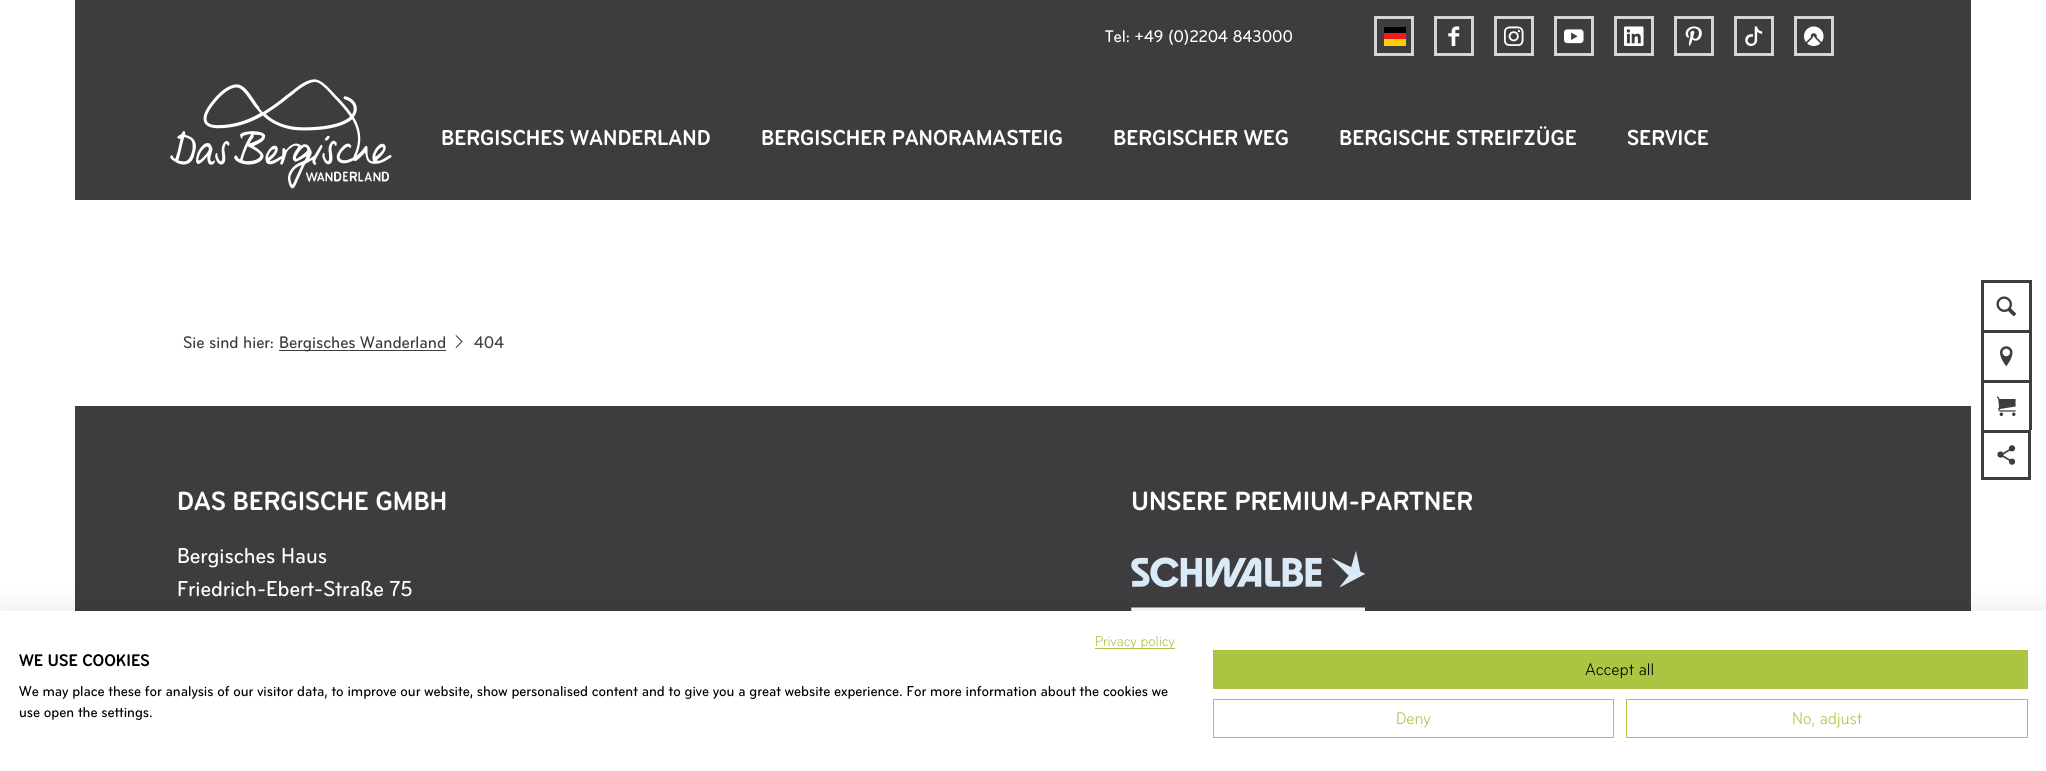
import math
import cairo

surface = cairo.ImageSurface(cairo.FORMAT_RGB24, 2046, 771)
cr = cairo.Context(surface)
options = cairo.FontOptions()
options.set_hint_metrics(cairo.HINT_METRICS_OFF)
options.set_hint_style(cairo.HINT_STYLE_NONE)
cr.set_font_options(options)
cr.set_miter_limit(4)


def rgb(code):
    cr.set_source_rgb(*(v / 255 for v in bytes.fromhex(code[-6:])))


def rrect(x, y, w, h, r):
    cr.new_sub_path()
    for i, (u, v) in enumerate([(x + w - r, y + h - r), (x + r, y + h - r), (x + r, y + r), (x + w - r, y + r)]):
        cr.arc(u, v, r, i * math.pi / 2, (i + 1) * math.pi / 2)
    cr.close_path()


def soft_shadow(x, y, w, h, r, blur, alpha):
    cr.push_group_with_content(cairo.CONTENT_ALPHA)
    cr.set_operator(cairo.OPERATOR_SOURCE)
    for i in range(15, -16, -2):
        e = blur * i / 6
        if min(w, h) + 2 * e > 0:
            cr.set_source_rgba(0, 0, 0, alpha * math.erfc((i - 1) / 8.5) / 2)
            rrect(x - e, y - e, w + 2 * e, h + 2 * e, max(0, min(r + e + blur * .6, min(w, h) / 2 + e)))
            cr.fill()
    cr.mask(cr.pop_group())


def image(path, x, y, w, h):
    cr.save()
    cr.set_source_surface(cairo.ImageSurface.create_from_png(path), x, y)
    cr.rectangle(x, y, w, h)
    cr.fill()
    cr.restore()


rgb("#ffffff")
cr.paint()
rgb("#3d3c3f")
cr.rectangle(75, 0, 1896, 200)
cr.fill()
cr.rectangle(1375.5, 17.5, 37, 37)
rgb("#d4d4d4")
cr.set_line_width(3)
cr.stroke()
for x, y, w, h, color in [
    (1384, 27, 22, 6, "#000000"),
    (1384, 33, 22, 6, "#f8161c"),
    (1384, 39, 22, 7, "#ffd000"),
]:
    rgb(color)
    cr.rectangle(x, y, w, h)
    cr.fill()
cr.rectangle(1435.5, 17.5, 37, 37)
rgb("#d4d4d4")
cr.stroke()
image("img/1.png", 1448, 26, 12, 20)
cr.rectangle(1495.5, 17.5, 37, 37)
cr.stroke()
image("img/2.png", 1504, 26, 20, 20)
cr.rectangle(1555.5, 17.5, 37, 37)
cr.stroke()
image("img/3.png", 1564, 29, 20, 15)
cr.rectangle(1615.5, 17.5, 37, 37)
cr.stroke()
image("img/4.png", 1624, 26, 20, 20)
cr.rectangle(1675.5, 17.5, 37, 37)
cr.stroke()
image("img/5.png", 1685, 26, 17, 20)
cr.rectangle(1735.5, 17.5, 37, 37)
cr.stroke()
image("img/6.png", 1745, 26, 18, 20)
cr.rectangle(1795.5, 17.5, 37, 37)
cr.stroke()
image("img/7.png", 1804, 26, 20, 20)
image("img/8.png", 170, 79, 222, 110)
rgb("#3d3c3f")
cr.rectangle(279, 350, 167, 1)
cr.fill()
image("img/9.png", 455, 335, 8, 13)
for x, y, w, h, color in [
    (1981, 280, 50, 3, "#3d3c3f"),
    (2029, 280, 3, 50, "#3d3c3f"),
    (1981, 280, 3, 50, "#3d3c3f"),
]:
    rgb(color)
    cr.rectangle(x, y, w, h)
    cr.fill()
image("img/10.png", 1996, 296, 20, 20)
for x, y, w, h, color in [
    (1981, 330, 50, 3, "#3d3c3f"),
    (2029, 330, 3, 50, "#3d3c3f"),
    (1981, 330, 3, 50, "#3d3c3f"),
]:
    rgb(color)
    cr.rectangle(x, y, w, h)
    cr.fill()
image("img/11.png", 2000, 346, 13, 20)
for x, y, w, h, color in [
    (1981, 380, 50, 3, "#3d3c3f"),
    (2029, 380, 3, 50, "#3d3c3f"),
    (1981, 380, 3, 50, "#3d3c3f"),
]:
    rgb(color)
    cr.rectangle(x, y, w, h)
    cr.fill()
image("img/12.png", 1996, 396, 20, 20)
cr.rectangle(1982.5, 431.5, 47, 47)
cr.stroke()
image("img/13.png", 1997, 445, 19, 20)
cr.rectangle(75, 406, 1896, 205)
cr.fill()
image("img/14.png", 1131, 551, 234, 37)
image("img/15.png", 1131, 607, 234, 4)
rgb("#000000")
soft_shadow(0, 611, 2046, 160, 0, 15, 0.1)
for x, y, w, h, color in [
    (0, 611, 2046, 160, "#ffffff"),
    (1095, 648, 80, 1, "#a9c542"),
    (1213, 650, 815, 39, "#a9c542"),
]:
    rgb(color)
    cr.rectangle(x, y, w, h)
    cr.fill()
cr.rectangle(1213.5, 699.5, 400, 38)
cr.set_line_width(1)
cr.stroke()
cr.rectangle(1626.5, 699.5, 401, 38)
cr.stroke()
cr.select_font_face("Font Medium")
cr.set_font_size(17.5)
rgb("#ffffff")
cr.move_to(1105, 42)
cr.show_text("Tel: +49 (0)2204 843000")
cr.select_font_face("Font", cairo.FONT_SLANT_NORMAL, cairo.FONT_WEIGHT_BOLD)
cr.set_font_size(22.5)
for x, y, s in [
    (441, 145, "BERGISCHES WANDERLAND"),
    (761, 145, "BERGISCHER PANORAMASTEIG"),
    (1113, 145, "BERGISCHER WEG"),
    (1339, 145, "BERGISCHE STREIFZÜGE"),
    (1627, 145, "SERVICE"),
]:
    cr.move_to(x, y)
    cr.show_text(s)
cr.select_font_face("Font Medium")
cr.set_font_size(17.5)
rgb("#3d3c3f")
for x, y, s in [
    (183, 348, "Sie sind hier:"),
    (279, 348, "Bergisches Wanderland"),
    (474, 348, "404"),
]:
    cr.move_to(x, y)
    cr.show_text(s)
cr.select_font_face("Font", cairo.FONT_SLANT_NORMAL, cairo.FONT_WEIGHT_BOLD)
cr.set_font_size(27.5)
rgb("#ffffff")
cr.move_to(177, 510)
cr.show_text("DAS BERGISCHE GMBH")
cr.select_font_face("Font Medium")
cr.set_font_size(22.5)
cr.move_to(177, 563)
cr.show_text("Bergisches Haus")
cr.move_to(177, 596)
cr.show_text("Friedrich-Ebert-Straße 75")
cr.select_font_face("Font", cairo.FONT_SLANT_NORMAL, cairo.FONT_WEIGHT_BOLD)
cr.set_font_size(27.5)
cr.move_to(1131, 510)
cr.show_text("UNSERE PREMIUM-PARTNER")
cr.select_font_face("Font")
cr.set_font_size(15)
rgb("#a9c542")
cr.move_to(1095, 646)
cr.show_text("Privacy policy")
cr.select_font_face("Font", cairo.FONT_SLANT_NORMAL, cairo.FONT_WEIGHT_BOLD)
cr.set_font_size(17.5)
rgb("#000000")
cr.move_to(19, 666)
cr.show_text("WE USE COOKIES")
cr.select_font_face("Font Medium")
cr.set_font_size(15)
cr.move_to(19, 696)
cr.show_text("We may place these for analysis of our visitor data, to improve our website, show personalised content and to give you a great website experience. For more information about the cookies we")
cr.move_to(19, 717)
cr.show_text("use open the settings.")
cr.select_font_face("Font")
cr.set_font_size(17.5)
cr.move_to(1585, 675)
cr.show_text("Accept all")
rgb("#a9c542")
cr.move_to(1396, 724)
cr.show_text("Deny")
cr.move_to(1792, 724)
cr.show_text("No, adjust")
surface.write_to_png("page.png")
